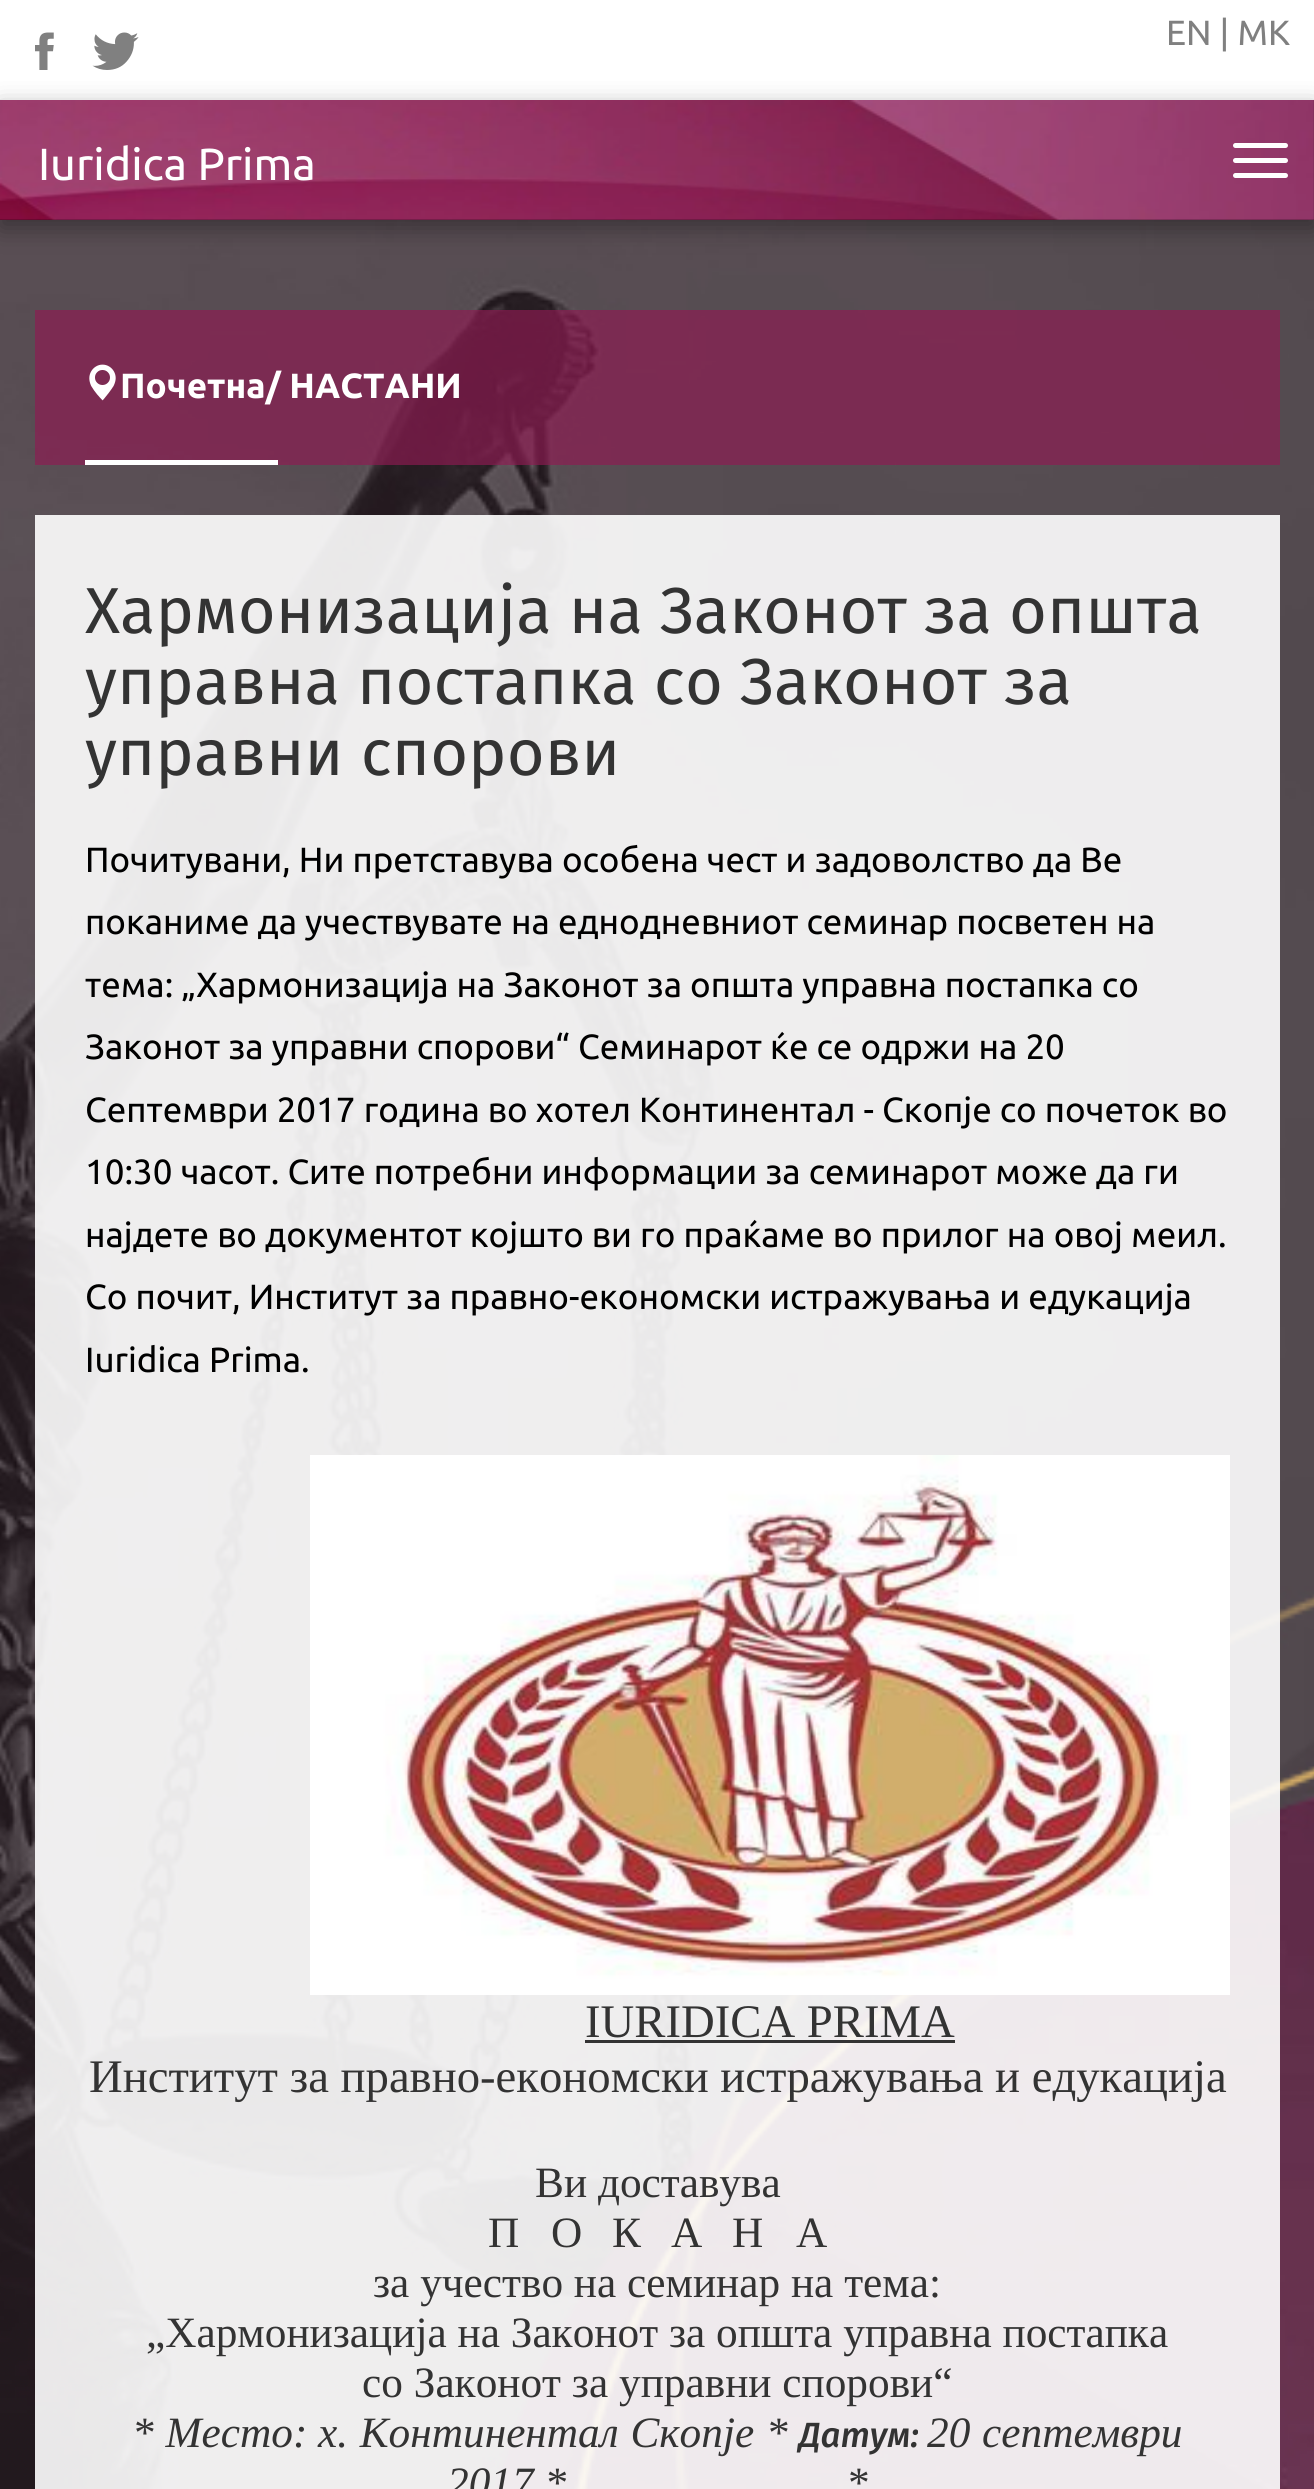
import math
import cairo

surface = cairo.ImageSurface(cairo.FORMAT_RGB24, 1314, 2489)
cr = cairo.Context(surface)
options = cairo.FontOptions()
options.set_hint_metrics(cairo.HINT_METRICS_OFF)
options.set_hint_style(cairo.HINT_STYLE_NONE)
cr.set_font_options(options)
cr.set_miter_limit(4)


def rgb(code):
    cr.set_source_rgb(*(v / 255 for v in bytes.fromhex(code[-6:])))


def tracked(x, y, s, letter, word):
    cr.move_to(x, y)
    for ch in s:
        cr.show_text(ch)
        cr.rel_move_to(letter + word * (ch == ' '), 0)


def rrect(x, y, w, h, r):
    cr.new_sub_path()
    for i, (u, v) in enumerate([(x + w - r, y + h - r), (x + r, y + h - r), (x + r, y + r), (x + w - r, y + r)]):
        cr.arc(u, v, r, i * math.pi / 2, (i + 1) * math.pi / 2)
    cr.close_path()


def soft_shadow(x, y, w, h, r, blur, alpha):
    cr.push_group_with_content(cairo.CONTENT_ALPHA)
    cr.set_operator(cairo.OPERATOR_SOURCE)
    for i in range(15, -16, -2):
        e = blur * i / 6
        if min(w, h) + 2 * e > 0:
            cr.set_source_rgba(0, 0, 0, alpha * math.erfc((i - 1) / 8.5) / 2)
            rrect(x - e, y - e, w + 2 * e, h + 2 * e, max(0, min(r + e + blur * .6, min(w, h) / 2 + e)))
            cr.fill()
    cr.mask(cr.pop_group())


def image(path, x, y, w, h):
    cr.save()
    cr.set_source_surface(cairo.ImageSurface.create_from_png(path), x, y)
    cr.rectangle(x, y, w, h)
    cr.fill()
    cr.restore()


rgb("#ffffff")
cr.paint()
image("img/1.png", 0, 220, 1314, 2269)
image("img/2.png", 35, 32, 19, 38)
image("img/3.png", 92, 32, 47, 38)
rgb("#000000")
soft_shadow(0, 108, 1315, 120, 0, 12.5, 0.37)
rgb("#000000")
cr.rectangle(0, 100, 1314, 120)
cr.fill()
image("img/4.png", 0, 100, 1314, 120)
rgb("#ffffff")
rrect(1233, 143, 55, 5, 2.5)
cr.fill()
rrect(1233, 158, 55, 5, 2.5)
cr.fill()
rrect(1233, 173, 55, 5, 2.5)
cr.fill()
cr.set_source_rgba(0.557, 0.106, 0.322, 0.66)
cr.rectangle(35, 310, 1245, 155)
cr.fill()
image("img/5.png", 89, 364, 27, 37)
rgb("#ffffff")
cr.rectangle(85, 460, 193, 5)
cr.fill()
cr.set_source_rgba(1, 1, 1, 0.9)
cr.rectangle(35, 515, 1245, 1974)
cr.fill()
image("img/6.png", 310, 1455, 920, 540)
rgb("#333333")
cr.rectangle(585, 2040, 370, 3)
cr.fill()
cr.select_font_face("Ubuntu")
cr.set_font_size(35)
rgb("#808080")
cr.move_to(1166, 45)
cr.show_text("EN | МК")
cr.set_font_size(45)
rgb("#ffffff")
cr.move_to(38, 180)
cr.show_text("Iuridica Prima")
cr.select_font_face("Ubuntu", cairo.FONT_SLANT_NORMAL, cairo.FONT_WEIGHT_BOLD)
cr.set_font_size(35)
cr.move_to(120, 398)
cr.show_text("Почетна/ НАСТАНИ")
cr.select_font_face("Fira Sans")
cr.set_font_size(65)
rgb("#333333")
for x, y, s in [
    (85, 633, "Хармонизација на Законот за општа"),
    (85, 704, "управна постапка со Законот за"),
    (85, 775, "управни спорови"),
]:
    cr.move_to(x, y)
    cr.show_text(s)
cr.select_font_face("Ubuntu")
cr.set_font_size(35)
rgb("#000000")
for x, y, s in [
    (85, 872, "Почитувани, Ни претставува особена чест и задоволство да Ве"),
    (85, 934, "поканиме да учествувате на еднодневниот семинар посветен на"),
    (85, 997, "тема: „Хармонизација на Законот за општа управна постапка со"),
    (85, 1059, "Законот за управни спорови“ Семинарот ќе се одржи на 20"),
    (85, 1122, "Септември 2017 година во хотел Континентал - Скопје со почеток во"),
    (85, 1184, "10:30 часот. Сите потребни информации за семинарот може да ги"),
    (85, 1247, "најдете во документот којшто ви го праќаме во прилог на овој меил."),
    (85, 1309, "Со почит, Институт за правно-економски истражувања и едукација"),
    (85, 1372, "Iuridica Prima."),
]:
    cr.move_to(x, y)
    cr.show_text(s)
cr.select_font_face("Liberation Serif")
cr.set_font_size(46.7)
rgb("#333333")
cr.move_to(585, 2037)
cr.show_text("IURIDICA PRIMA")
cr.move_to(89, 2092)
cr.show_text("Институт за правно-економски истражувања и едукација")
cr.set_font_size(43.3)
for x, y, s in [
    (535, 2197, "Ви доставува"),
    (488, 2247, "П"),
    (551, 2247, "О"),
    (612, 2247, "К"),
    (671, 2247, "А"),
    (732, 2247, "Н"),
    (796, 2247, "А"),
    (373, 2297, "за учество на семинар на тема:"),
    (146, 2347, "„Хармонизација на Законот за општа управна постапка"),
    (362, 2397, "со Законот за управни спорови“"),
]:
    cr.move_to(x, y)
    cr.show_text(s)
cr.select_font_face("Liberation Serif", cairo.FONT_SLANT_ITALIC)
tracked(132, 2447, "* Место:", 0, 1)
tracked(318, 2447, "х. Континентал Скопје *", 0, 1)
cr.select_font_face("Fira Sans Medium", cairo.FONT_SLANT_ITALIC)
cr.set_font_size(35)
cr.move_to(799, 2447)
cr.show_text("Датум:")
cr.select_font_face("Liberation Serif", cairo.FONT_SLANT_ITALIC)
cr.set_font_size(43.3)
tracked(927, 2447, "20 септември", 0, 1)
cr.move_to(447, 2497)
cr.show_text("2017 *")
cr.move_to(846, 2497)
cr.show_text("*")
surface.write_to_png("page.png")
